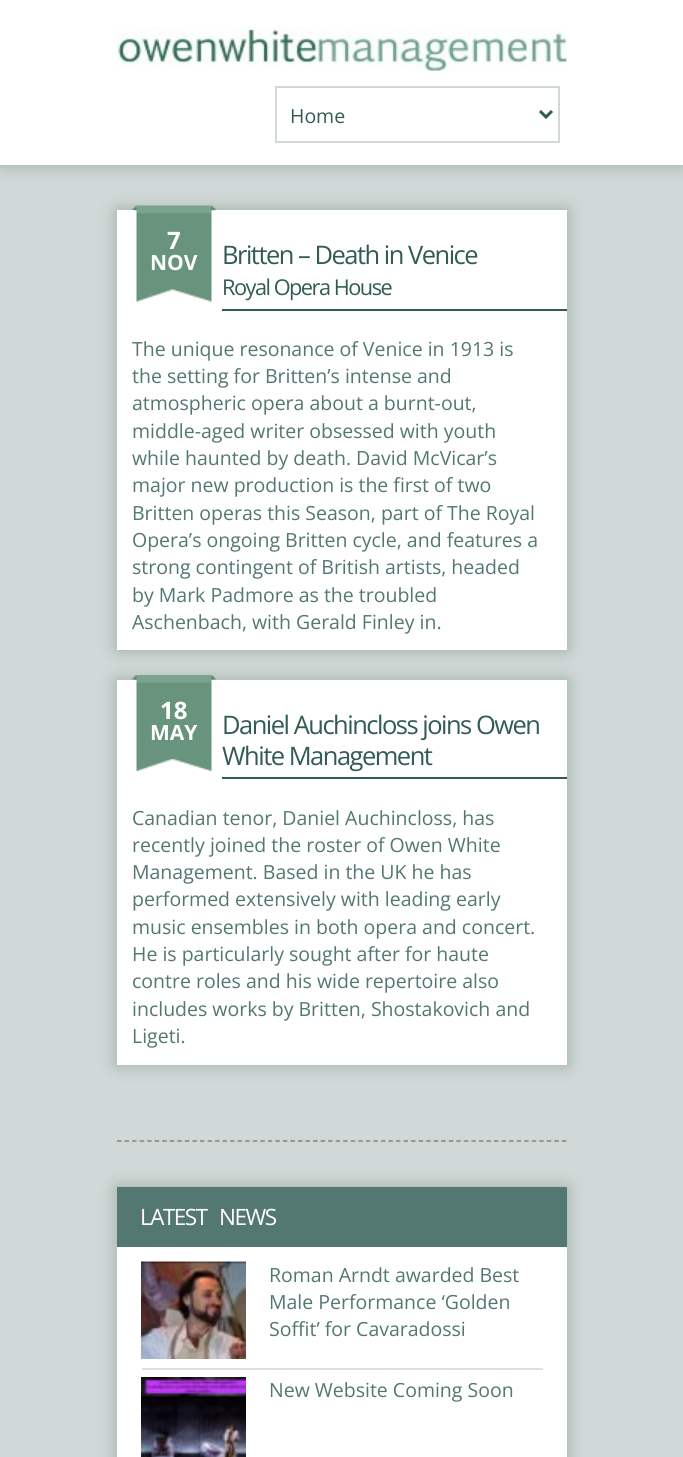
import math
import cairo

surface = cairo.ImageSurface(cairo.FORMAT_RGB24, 683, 1457)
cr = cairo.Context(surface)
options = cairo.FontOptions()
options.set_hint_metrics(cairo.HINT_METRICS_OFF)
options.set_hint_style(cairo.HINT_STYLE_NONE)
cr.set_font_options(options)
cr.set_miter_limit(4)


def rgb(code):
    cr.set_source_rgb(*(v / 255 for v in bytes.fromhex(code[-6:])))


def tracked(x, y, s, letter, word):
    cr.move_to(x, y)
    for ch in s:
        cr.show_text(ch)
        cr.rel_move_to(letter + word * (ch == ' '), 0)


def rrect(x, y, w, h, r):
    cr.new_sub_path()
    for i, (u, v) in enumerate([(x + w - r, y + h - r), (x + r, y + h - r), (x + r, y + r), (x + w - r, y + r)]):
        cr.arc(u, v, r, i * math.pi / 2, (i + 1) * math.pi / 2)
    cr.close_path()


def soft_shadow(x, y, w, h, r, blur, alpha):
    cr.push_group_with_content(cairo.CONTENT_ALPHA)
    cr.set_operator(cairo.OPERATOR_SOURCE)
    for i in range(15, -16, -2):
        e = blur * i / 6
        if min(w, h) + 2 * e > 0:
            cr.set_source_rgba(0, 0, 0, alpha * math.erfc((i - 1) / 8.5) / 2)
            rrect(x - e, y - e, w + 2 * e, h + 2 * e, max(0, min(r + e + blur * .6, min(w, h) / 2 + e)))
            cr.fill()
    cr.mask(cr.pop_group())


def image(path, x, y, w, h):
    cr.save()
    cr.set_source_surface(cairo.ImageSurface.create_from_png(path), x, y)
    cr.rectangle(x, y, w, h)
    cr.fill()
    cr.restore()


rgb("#d1d9d8")
cr.paint()
rgb("#415f43")
soft_shadow(0, 0, 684, 165, 0, 9, 0.38)
rgb("#ffffff")
cr.rectangle(0, 0, 683, 165)
cr.fill()
image("img/1.png", 117, 27, 450, 44)
cr.rectangle(276, 87, 283, 55)
rgb("#d1d9d8")
cr.stroke()
cr.new_path()
cr.move_to(540, 111)
cr.line_to(546, 117)
cr.line_to(552, 111)
rgb("#315b54")
cr.set_line_width(3)
cr.stroke()
cr.new_path()
cr.move_to(117, 1141)
cr.line_to(567, 1141)
rgb("#8e8071")
cr.set_line_width(1.5)
cr.set_dash([4.5, 3.04])
cr.stroke()
rgb("#415f43")
soft_shadow(117, 210, 450, 440, 0, 9, 0.38)
rgb("#ffffff")
cr.rectangle(117, 210, 450, 440)
cr.fill()
image("img/2.png", 132, 205, 84, 97)
rgb("#315b54")
cr.rectangle(222, 309, 345, 2)
cr.fill()
rgb("#415f43")
soft_shadow(117, 680, 450, 385, 0, 9, 0.38)
rgb("#ffffff")
cr.rectangle(117, 680, 450, 385)
cr.fill()
image("img/3.png", 132, 675, 84, 96)
rgb("#315b54")
cr.rectangle(222, 777, 345, 2)
cr.fill()
rgb("#415f43")
soft_shadow(117, 1187, 450, 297, 0, 9, 0.38)
rgb("#ffffff")
cr.rectangle(117, 1247, 450, 210)
cr.fill()
rgb("#537771")
cr.rectangle(117, 1187, 450, 60)
cr.fill()
image("img/4.png", 141, 1261, 105, 98)
for x, y, w, h, color in [
    (140, 1368, 405, 2, "#e1e0e0"),
    (543, 1368, 2, 2, "#ffffff"),
    (140, 1368, 2, 2, "#ffffff"),
]:
    rgb(color)
    cr.rectangle(x, y, w, h)
    cr.fill()
image("img/5.png", 141, 1377, 105, 80)
cr.select_font_face("Open Sans")
cr.set_font_size(19.5)
rgb("#315b54")
cr.move_to(290, 123)
cr.show_text("Home")
cr.select_font_face("Open Sans", cairo.FONT_SLANT_NORMAL, cairo.FONT_WEIGHT_BOLD)
cr.set_font_size(24)
rgb("#ffffff")
cr.move_to(167, 249)
cr.show_text("7")
cr.set_font_size(21)
cr.move_to(150, 270)
cr.show_text("NOV")
cr.select_font_face("Open Sans")
cr.set_font_size(25.5)
rgb("#315b54")
tracked(222, 264, "Britten – Death in Venice", -1.5, 0)
cr.set_font_size(21.75)
tracked(222, 295, "Royal Opera House", -1.5, 0)
cr.set_font_size(19.5)
rgb("#537771")
for x, y, s in [
    (132, 356, "The unique resonance of Venice in 1913 is"),
    (132, 383, "the setting for Britten’s intense and"),
    (132, 410, "atmospheric opera about a burnt-out,"),
    (132, 438, "middle-aged writer obsessed with youth"),
    (132, 465, "while haunted by death. David McVicar’s"),
    (132, 492, "major new production is the first of two"),
    (132, 520, "Britten operas this Season, part of The Royal"),
    (132, 547, "Opera’s ongoing Britten cycle, and features a"),
    (132, 574, "strong contingent of British artists, headed"),
    (132, 602, "by Mark Padmore as the troubled"),
    (132, 629, "Aschenbach, with Gerald Finley in."),
]:
    cr.move_to(x, y)
    cr.show_text(s)
cr.select_font_face("Open Sans", cairo.FONT_SLANT_NORMAL, cairo.FONT_WEIGHT_BOLD)
cr.set_font_size(24)
rgb("#ffffff")
cr.move_to(160, 719)
cr.show_text("18")
cr.set_font_size(21)
cr.move_to(150, 740)
cr.show_text("MAY")
cr.select_font_face("Open Sans")
cr.set_font_size(25.5)
rgb("#315b54")
tracked(222, 734, "Daniel Auchincloss joins Owen", -1.5, 0)
tracked(222, 765, "White Management", -1.5, 0)
cr.set_font_size(19.5)
rgb("#537771")
for x, y, s in [
    (132, 825, "Canadian tenor, Daniel Auchincloss, has"),
    (132, 852, "recently joined the roster of Owen White"),
    (132, 879, "Management. Based in the UK he has"),
    (132, 906, "performed extensively with leading early"),
    (132, 934, "music ensembles in both opera and concert."),
    (132, 961, "He is particularly sought after for haute"),
    (132, 988, "contre roles and his wide repertoire also"),
    (132, 1016, "includes works by Britten, Shostakovich and"),
    (132, 1043, "Ligeti."),
]:
    cr.move_to(x, y)
    cr.show_text(s)
cr.set_font_size(22.5)
rgb("#ffffff")
tracked(140, 1225, "LATEST NEWS", -1.5, 8)
cr.set_font_size(19.5)
rgb("#537771")
for x, y, s in [
    (269, 1282, "Roman Arndt awarded Best"),
    (269, 1309, "Male Performance ‘Golden"),
    (269, 1336, "Soffit’ for Cavaradossi"),
    (269, 1397, "New Website Coming Soon"),
]:
    cr.move_to(x, y)
    cr.show_text(s)
surface.write_to_png("page.png")
